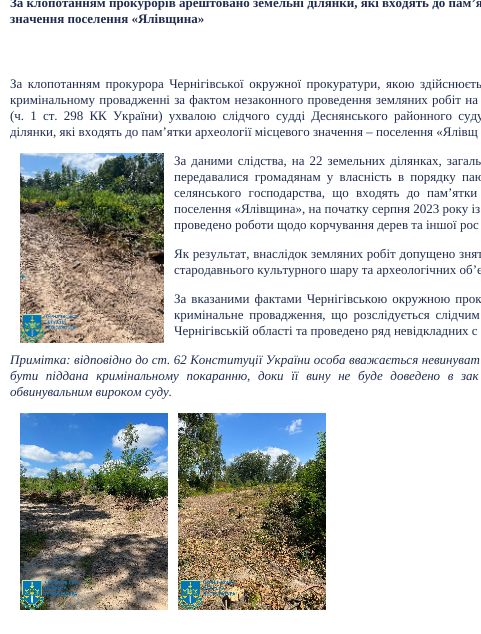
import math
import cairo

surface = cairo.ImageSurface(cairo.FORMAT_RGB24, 481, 634)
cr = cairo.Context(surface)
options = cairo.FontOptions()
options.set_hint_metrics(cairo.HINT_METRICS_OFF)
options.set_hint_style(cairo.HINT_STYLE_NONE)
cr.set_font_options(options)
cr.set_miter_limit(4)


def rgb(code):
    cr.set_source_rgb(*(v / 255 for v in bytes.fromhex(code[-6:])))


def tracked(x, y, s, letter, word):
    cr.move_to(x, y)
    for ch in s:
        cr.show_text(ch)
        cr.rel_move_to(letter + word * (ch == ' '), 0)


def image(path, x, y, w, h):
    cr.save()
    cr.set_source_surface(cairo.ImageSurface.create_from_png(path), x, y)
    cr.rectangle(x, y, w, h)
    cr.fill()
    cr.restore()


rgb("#ffffff")
cr.paint()
image("img/1.png", 20, 153, 144, 190)
image("img/2.png", 20, 413, 148, 197)
image("img/3.png", 178, 413, 148, 197)
cr.select_font_face("Liberation Serif", cairo.FONT_SLANT_NORMAL, cairo.FONT_WEIGHT_BOLD)
cr.set_font_size(13)
rgb("#1f2c4f")
cr.move_to(10, 7)
cr.show_text("За клопотанням прокурорів арештовано земельні ділянки, які входять до пам’я")
cr.move_to(10, 23)
cr.show_text("значення поселення «Ялівщина»")
cr.select_font_face("Liberation Serif")
tracked(10, 88, "За клопотанням прокурора Чернігівської окружної прокуратури, якою здійснюєть", 0, 2.25)
tracked(10, 104, "кримінальному провадженні за фактом незаконного проведення земляних робіт на", 0, 1)
tracked(10, 120, "(ч. 1 ст. 298 КК України) ухвалою слідчого судді Деснянського районного суду", 0, 2.9)
cr.move_to(10, 136)
cr.show_text("ділянки, які входять до пам’ятки археології місцевого значення – поселення «Ялівщ")
tracked(174, 165, "За даними слідства, на 22 земельних ділянках, загаль", 0, 1.75)
tracked(174, 181, "передавалися громадянам у власність в порядку паю", 0, 3)
tracked(174, 197, "селянського господарства, що входять до пам’ятки", 0, 4)
cr.move_to(174, 213)
cr.show_text("поселення «Ялівщина», на початку серпня 2023 року із")
cr.move_to(174, 229)
cr.show_text("проведено роботи щодо корчування дерев та іншої рос")
tracked(174, 258, "Як результат, внаслідок земляних робіт допущено знят", 0, 0.5)
cr.move_to(174, 274)
cr.show_text("стародавнього культурного шару та археологічних об’є")
tracked(174, 303, "За вказаними фактами Чернігівською окружною прок", 0, 1.75)
tracked(174, 319, "кримінальне провадження, що розслідується слідчим", 0, 2.5)
cr.move_to(174, 335)
cr.show_text("Чернігівській області та проведено ряд невідкладних с")
cr.select_font_face("Liberation Serif", cairo.FONT_SLANT_ITALIC)
tracked(10, 364, "Примітка: відповідно до ст. 62 Конституції України особа вважається невинуват", 0, 0.25)
tracked(10, 380, "бути піддана кримінальному покаранню, доки її вину не буде доведено в зак", 0, 4.4)
cr.move_to(10, 396)
cr.show_text("обвинувальним вироком суду.")
surface.write_to_png("page.png")
